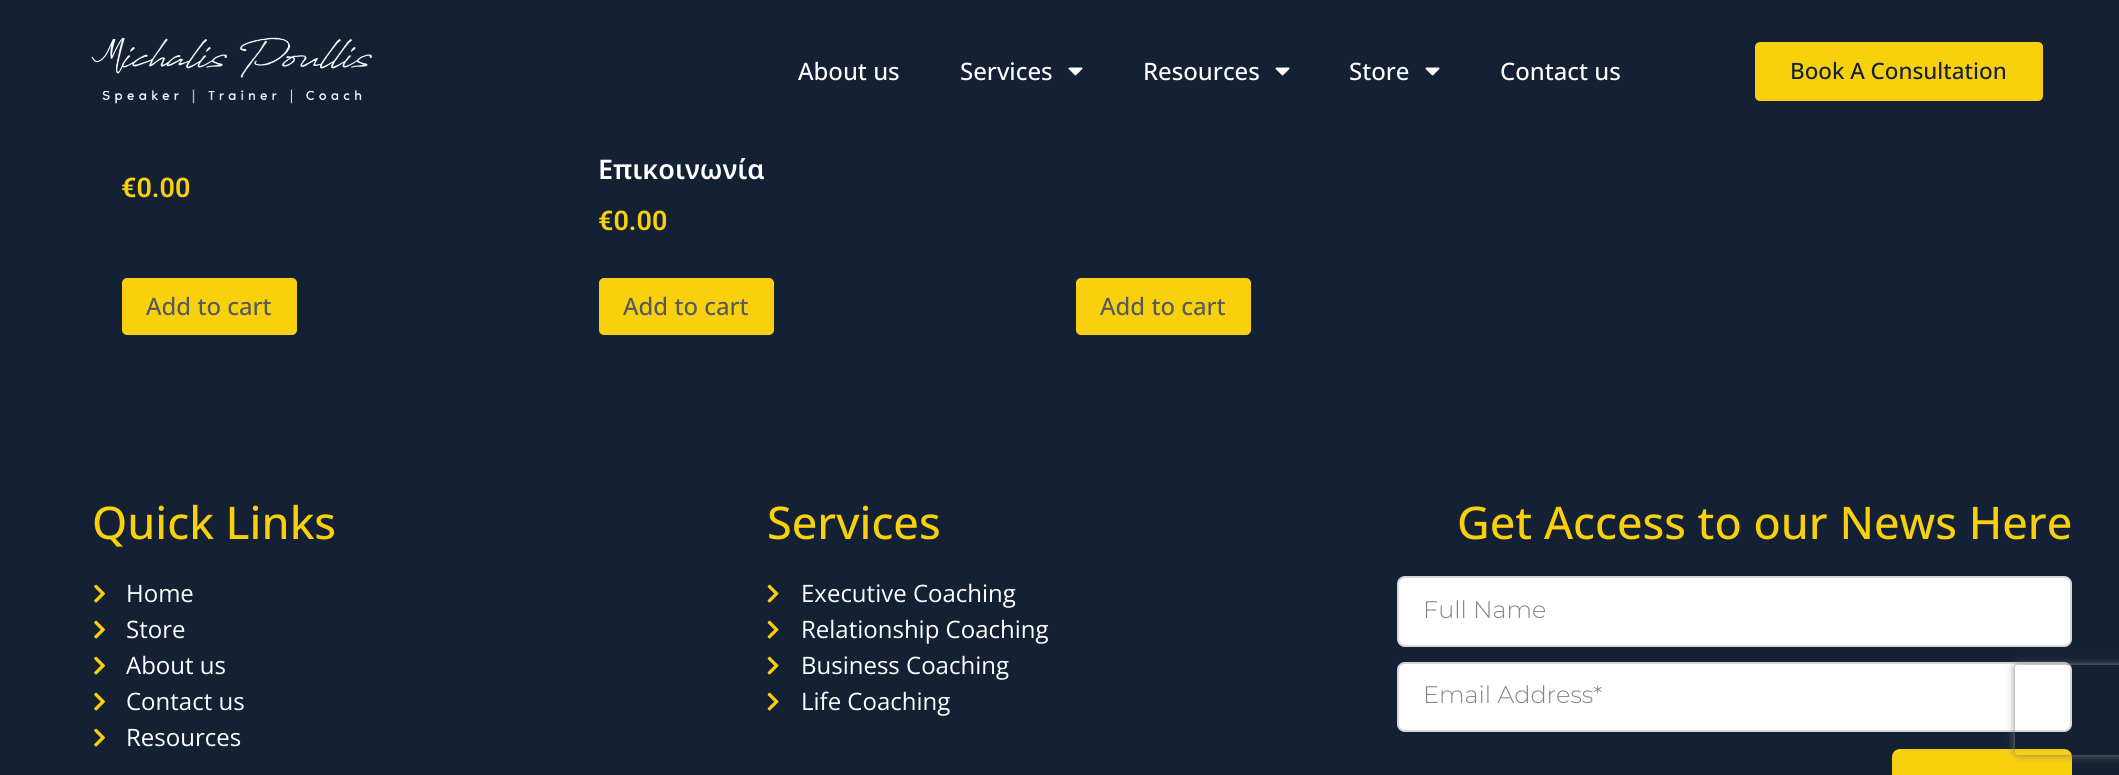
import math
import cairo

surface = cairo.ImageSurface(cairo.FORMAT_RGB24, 2119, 775)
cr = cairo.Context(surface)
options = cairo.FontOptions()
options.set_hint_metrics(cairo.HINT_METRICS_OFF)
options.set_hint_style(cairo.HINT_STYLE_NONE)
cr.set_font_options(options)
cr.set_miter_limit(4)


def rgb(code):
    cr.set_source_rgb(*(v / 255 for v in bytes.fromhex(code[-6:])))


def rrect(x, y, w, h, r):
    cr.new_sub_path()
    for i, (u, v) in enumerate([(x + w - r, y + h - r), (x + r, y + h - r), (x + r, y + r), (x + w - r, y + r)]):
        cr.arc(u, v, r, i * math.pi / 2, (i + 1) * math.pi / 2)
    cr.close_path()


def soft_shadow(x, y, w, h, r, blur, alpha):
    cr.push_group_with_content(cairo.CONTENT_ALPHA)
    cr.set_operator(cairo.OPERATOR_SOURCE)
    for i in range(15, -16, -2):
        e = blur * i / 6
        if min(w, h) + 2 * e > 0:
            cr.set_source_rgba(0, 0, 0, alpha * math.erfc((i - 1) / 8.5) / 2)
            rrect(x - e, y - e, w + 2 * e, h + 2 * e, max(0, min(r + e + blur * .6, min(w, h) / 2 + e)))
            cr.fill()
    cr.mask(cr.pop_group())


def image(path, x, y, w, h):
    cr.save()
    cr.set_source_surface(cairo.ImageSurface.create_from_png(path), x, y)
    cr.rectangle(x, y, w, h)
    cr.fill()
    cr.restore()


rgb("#142034")
cr.paint()
image("img/1.png", 91, 37, 282, 67)
image("img/2.png", 1068, 67, 15, 9)
image("img/2.png", 1275, 67, 15, 9)
image("img/2.png", 1425, 67, 15, 9)
rgb("#f8d10c")
rrect(1755, 42, 288, 59, 5)
cr.fill()
rrect(123, 279, 173, 55, 4)
cr.fill_preserve()
cr.stroke()
rrect(600, 279, 173, 55, 4)
cr.fill_preserve()
cr.stroke()
rrect(1077, 279, 173, 55, 4)
cr.fill_preserve()
cr.stroke()
image("img/3.png", 94, 584, 11, 19)
image("img/3.png", 94, 620, 11, 19)
image("img/3.png", 94, 656, 11, 19)
image("img/3.png", 94, 692, 11, 19)
image("img/3.png", 94, 728, 11, 19)
image("img/4.png", 767, 584, 12, 19)
image("img/4.png", 767, 620, 12, 19)
image("img/4.png", 767, 656, 12, 19)
image("img/4.png", 767, 692, 12, 19)
rgb("#ffffff")
rrect(1398, 577, 673, 69, 7)
cr.fill_preserve()
rgb("#d8d8d8")
cr.stroke()
rgb("#ffffff")
rrect(1398, 663, 673, 68, 7)
cr.fill_preserve()
rgb("#d8d8d8")
cr.stroke()
rgb("#f8d10c")
rrect(1892, 749, 180, 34, 8)
cr.fill()
cr.save()
cr.set_fill_rule(cairo.FILL_RULE_EVEN_ODD)
cr.new_path()
cr.move_to(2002, 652)
cr.line_to(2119, 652)
cr.line_to(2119, 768)
cr.line_to(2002, 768)
cr.close_path()
cr.move_to(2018, 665)
cr.line_to(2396, 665)
cr.curve_to(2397.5, 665, 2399, 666.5, 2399, 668)
cr.line_to(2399, 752)
cr.curve_to(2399, 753.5, 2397.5, 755, 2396, 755)
cr.line_to(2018, 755)
cr.curve_to(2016.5, 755, 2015, 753.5, 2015, 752)
cr.line_to(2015, 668)
cr.curve_to(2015, 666.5, 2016.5, 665, 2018, 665)
cr.close_path()
cr.clip()
rgb("#808080")
soft_shadow(2015, 665, 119, 90, 3, 4, 1)
cr.restore()
cr.select_font_face("Open Sans Medium")
cr.set_font_size(24)
rgb("#ffffff")
for x, y, s in [
    (798, 80, "About us"),
    (960, 80, "Services"),
    (1143, 80, "Resources"),
    (1349, 80, "Store"),
    (1500, 80, "Contact us"),
]:
    cr.move_to(x, y)
    cr.show_text(s)
cr.set_font_size(22.5)
rgb("#142034")
cr.move_to(1790, 79)
cr.show_text("Book A Consultation")
cr.select_font_face("Roboto SemiBold")
cr.set_font_size(27)
rgb("#f8d10c")
cr.move_to(121, 197)
cr.show_text("€0.00")
cr.select_font_face("Open Sans Medium")
cr.set_font_size(24)
rgb("#54595f")
cr.move_to(146, 315)
cr.show_text("Add to cart")
cr.select_font_face("Noto Sans SemiBold")
cr.set_font_size(27)
rgb("#ffffff")
cr.move_to(598, 179)
cr.show_text("Επικοινωνία")
cr.select_font_face("Roboto SemiBold")
rgb("#f8d10c")
cr.move_to(598, 230)
cr.show_text("€0.00")
cr.select_font_face("Open Sans Medium")
cr.set_font_size(24)
rgb("#54595f")
cr.move_to(623, 315)
cr.show_text("Add to cart")
cr.move_to(1100, 315)
cr.show_text("Add to cart")
cr.set_font_size(45)
rgb("#f8d10c")
cr.move_to(92, 539)
cr.show_text("Quick Links")
cr.select_font_face("Open Sans")
cr.set_font_size(24)
rgb("#ffffff")
for x, y, s in [
    (126, 602, "Home"),
    (126, 638, "Store"),
    (126, 674, "About us"),
    (126, 710, "Contact us"),
    (126, 746, "Resources"),
]:
    cr.move_to(x, y)
    cr.show_text(s)
cr.select_font_face("Open Sans Medium")
cr.set_font_size(45)
rgb("#f8d10c")
cr.move_to(767, 539)
cr.show_text("Services")
cr.select_font_face("Open Sans")
cr.set_font_size(24)
rgb("#ffffff")
for x, y, s in [
    (801, 602, "Executive Coaching"),
    (801, 638, "Relationship Coaching"),
    (801, 674, "Business Coaching"),
    (801, 710, "Life Coaching"),
]:
    cr.move_to(x, y)
    cr.show_text(s)
cr.select_font_face("Open Sans Medium")
cr.set_font_size(45)
rgb("#f8d10c")
cr.move_to(1457, 539)
cr.show_text("Get Access to our News Here")
cr.select_font_face("Montserrat Light")
cr.set_font_size(24)
rgb("#868686")
cr.move_to(1423, 618)
cr.show_text("Full Name")
cr.move_to(1423, 703)
cr.show_text("Email Address*")
surface.write_to_png("page.png")
